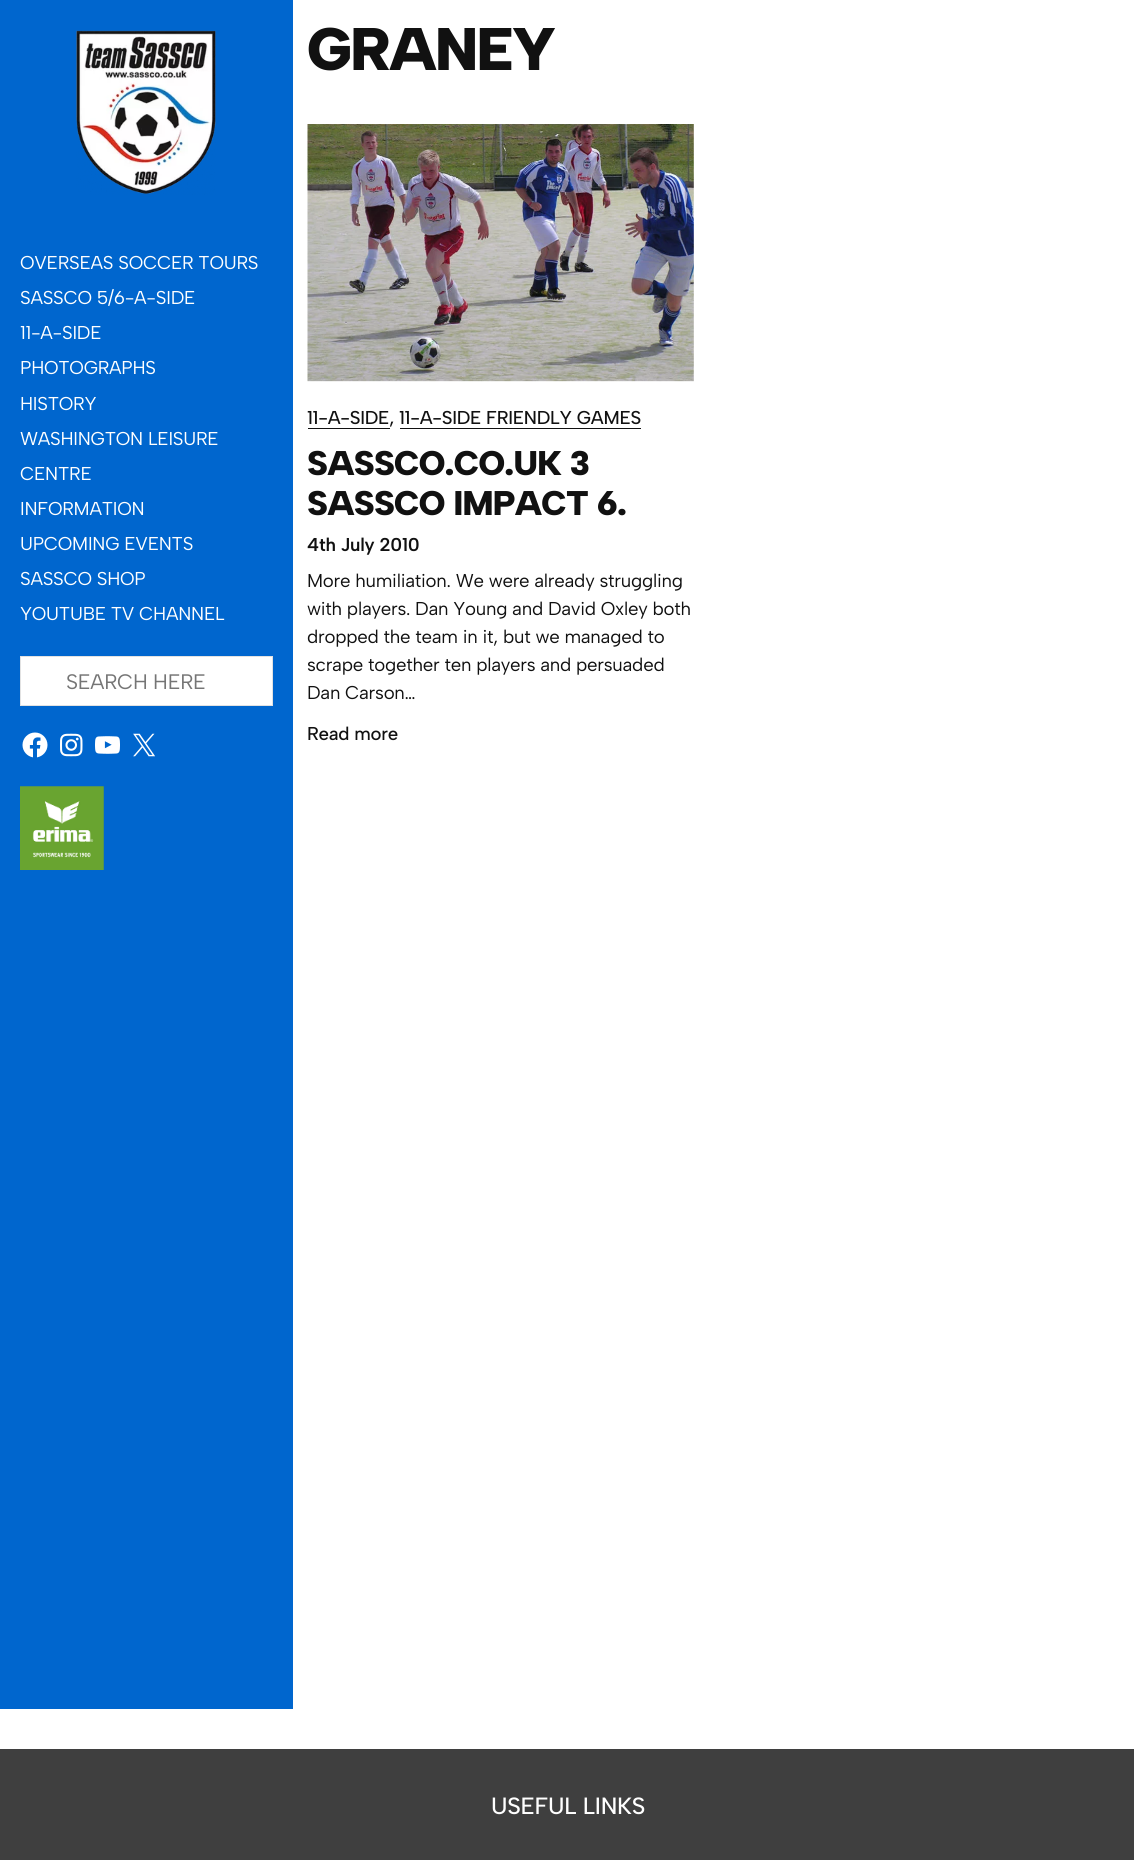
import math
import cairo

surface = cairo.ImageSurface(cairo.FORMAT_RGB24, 1134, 1860)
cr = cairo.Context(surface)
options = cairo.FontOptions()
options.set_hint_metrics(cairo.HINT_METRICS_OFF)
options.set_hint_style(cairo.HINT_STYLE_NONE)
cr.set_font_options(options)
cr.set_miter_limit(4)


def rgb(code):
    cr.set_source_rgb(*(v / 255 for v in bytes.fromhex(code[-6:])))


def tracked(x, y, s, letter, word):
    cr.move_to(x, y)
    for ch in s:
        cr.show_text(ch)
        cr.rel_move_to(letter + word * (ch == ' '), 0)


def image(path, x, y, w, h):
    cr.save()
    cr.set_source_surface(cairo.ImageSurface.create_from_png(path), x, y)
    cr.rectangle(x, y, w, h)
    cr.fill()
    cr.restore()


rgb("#ffffff")
cr.paint()
rgb("#0066ce")
cr.rectangle(0, 0, 293, 1709)
cr.fill()
image("img/1.png", 76, 30, 140, 165)
rgb("#ffffff")
cr.rectangle(20.5, 656.5, 252, 49)
cr.fill_preserve()
rgb("#e2e2e2")
cr.set_line_width(1)
cr.stroke()
image("img/2.png", 22, 732, 26, 26)
image("img/3.png", 60, 733, 23, 24)
image("img/4.png", 95, 736, 25, 18)
image("img/5.png", 133, 733, 22, 24)
image("img/6.png", 20, 786, 84, 84)
image("img/7.png", 307, 124, 387, 258)
for x, y, w, h, color in [
    (308, 428, 82, 1, "#111111"),
    (400, 428, 241, 1, "#111111"),
    (0, 1749, 1134, 111, "#3f3f3f"),
]:
    rgb(color)
    cr.rectangle(x, y, w, h)
    cr.fill()
cr.select_font_face("Albert Sans")
cr.set_font_size(18.6)
rgb("#ffffff")
for x, y, s in [
    (20, 269, "OVERSEAS SOCCER TOURS"),
    (20, 304, "SASSCO 5/6-A-SIDE"),
    (20, 339, "11-A-SIDE"),
    (20, 374, "PHOTOGRAPHS"),
    (20, 410, "HISTORY"),
    (20, 445, "WASHINGTON LEISURE"),
    (20, 480, "CENTRE"),
    (20, 515, "INFORMATION"),
    (20, 550, "UPCOMING EVENTS"),
    (20, 585, "SASSCO SHOP"),
    (20, 620, "YOUTUBE TV CHANNEL"),
]:
    tracked(x, y, s, -0.25, 0)
cr.set_font_size(21)
rgb("#757575")
tracked(66, 689, "SEARCH HERE", -0.25, 0)
cr.select_font_face("Albert Sans Black")
cr.set_font_size(60)
rgb("#111111")
tracked(307, 70, "GRANEY", -1.75, 0)
cr.select_font_face("Albert Sans Medium")
cr.set_font_size(18.6)
tracked(307, 424, "11-A-SIDE, 11-A-SIDE FRIENDLY GAMES", -0.25, 0)
cr.select_font_face("Albert Sans Black")
cr.set_font_size(34.25)
tracked(307, 475, "SASSCO.CO.UK 3", -0.75, 0)
tracked(307, 515, "SASSCO IMPACT 6.", -0.75, 0)
cr.select_font_face("Albert Sans SemiBold")
cr.set_font_size(18.6)
tracked(307, 551, "4th July 2010", -0.25, 0)
cr.select_font_face("Albert Sans")
for x, y, s in [
    (307, 587, "More humiliation. We were already struggling"),
    (307, 615, "with players. Dan Young and David Oxley both"),
    (307, 643, "dropped the team in it, but we managed to"),
    (307, 671, "scrape together ten players and persuaded"),
    (307, 699, "Dan Carson…"),
]:
    tracked(x, y, s, -0.25, 0)
cr.select_font_face("Albert Sans Medium")
tracked(307, 740, "Read more", -0.25, 0)
cr.set_font_size(23.5)
rgb("#ffffff")
tracked(491, 1814, "USEFUL LINKS", -0.25, 0)
surface.write_to_png("page.png")
